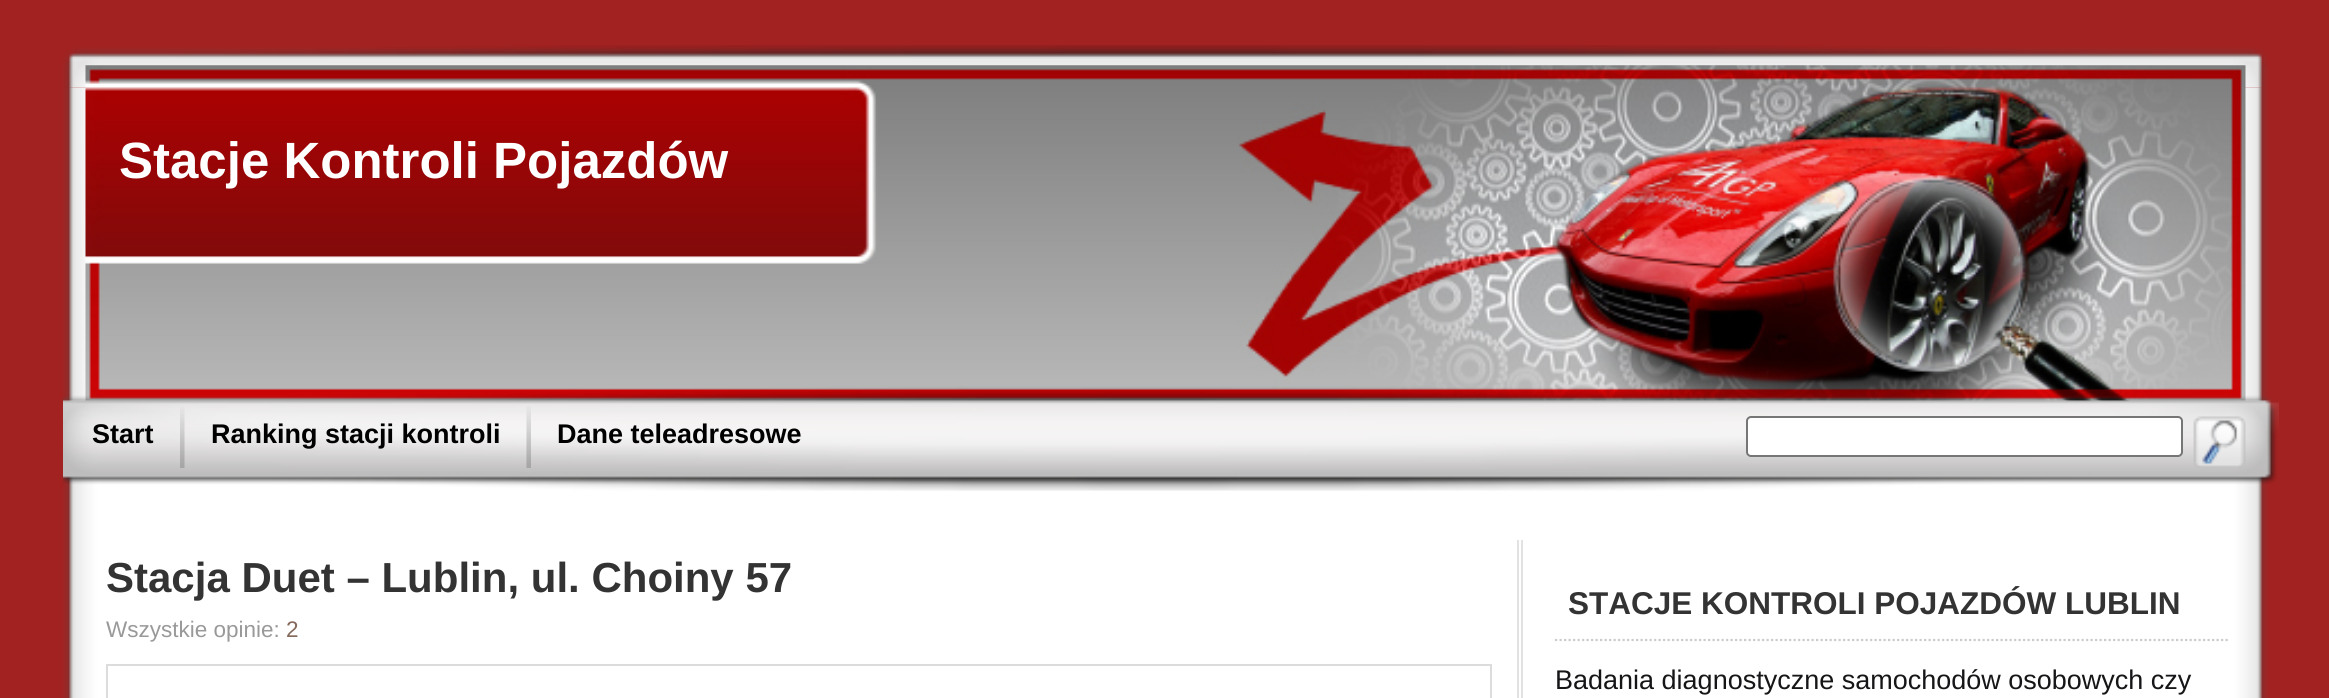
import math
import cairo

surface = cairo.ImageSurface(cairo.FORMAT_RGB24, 2329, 698)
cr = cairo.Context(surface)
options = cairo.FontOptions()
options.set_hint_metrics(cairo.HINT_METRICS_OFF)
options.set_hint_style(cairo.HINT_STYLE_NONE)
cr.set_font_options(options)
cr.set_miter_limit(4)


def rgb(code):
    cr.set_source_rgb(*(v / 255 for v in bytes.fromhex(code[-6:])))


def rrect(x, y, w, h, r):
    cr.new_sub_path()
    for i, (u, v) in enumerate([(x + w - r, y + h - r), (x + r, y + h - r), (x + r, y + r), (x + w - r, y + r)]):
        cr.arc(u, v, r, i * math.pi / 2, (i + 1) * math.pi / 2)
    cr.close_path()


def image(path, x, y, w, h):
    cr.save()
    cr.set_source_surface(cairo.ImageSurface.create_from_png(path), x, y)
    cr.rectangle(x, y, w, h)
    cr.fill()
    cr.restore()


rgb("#a22221")
cr.paint()
image("img/1.png", 63, 45, 2205, 43)
image("img/2.png", 63, 87, 2205, 611)
image("img/3.png", 85, 65, 2161, 337)
image("img/4.png", 63, 386, 2216, 105)
image("img/5.png", 180, 407, 5, 61)
image("img/6.png", 526, 406, 5, 62)
rgb("#ffffff")
rrect(1747, 417, 435, 39, 4)
cr.fill_preserve()
rgb("#767676")
cr.stroke()
image("img/7.png", 2193, 416, 53, 52)
cr.rectangle(107, 665, 1384, 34)
rgb("#dcdcdc")
cr.stroke()
rgb("#e2e2e2")
cr.rectangle(1517, 540, 2, 158)
cr.fill()
cr.rectangle(1521, 540, 2, 158)
cr.fill()
cr.new_path()
cr.move_to(1555, 640)
cr.line_to(2230, 640)
rgb("#cccccc")
cr.set_line_width(2.2)
cr.set_dash([2.25, 2.25])
cr.stroke()
cr.select_font_face("Liberation Sans", cairo.FONT_SLANT_NORMAL, cairo.FONT_WEIGHT_BOLD)
cr.set_font_size(51)
rgb("#ffffff")
cr.move_to(119, 178)
cr.show_text("Stacje Kontroli Pojazdów")
cr.set_font_size(27)
rgb("#000000")
for x, y, s in [
    (92, 443, "Start"),
    (211, 443, "Ranking stacji kontroli"),
    (557, 443, "Dane teleadresowe"),
]:
    cr.move_to(x, y)
    cr.show_text(s)
cr.set_font_size(42)
rgb("#333333")
cr.move_to(106, 592)
cr.show_text("Stacja Duet – Lublin, ul. Choiny 57")
cr.select_font_face("Liberation Sans")
cr.set_font_size(22.5)
rgb("#999999")
cr.move_to(106, 637)
cr.show_text("Wszystkie opinie:")
rgb("#85695b")
cr.move_to(286, 637)
cr.show_text("2")
cr.select_font_face("Liberation Sans", cairo.FONT_SLANT_NORMAL, cairo.FONT_WEIGHT_BOLD)
cr.set_font_size(31.5)
rgb("#333333")
cr.move_to(1568, 614)
cr.show_text("STACJE KONTROLI POJAZDÓW LUBLIN")
cr.select_font_face("Liberation Sans")
cr.set_font_size(27)
rgb("#161618")
cr.move_to(1555, 689)
cr.show_text("Badania diagnostyczne samochodów osobowych czy")
surface.write_to_png("page.png")
